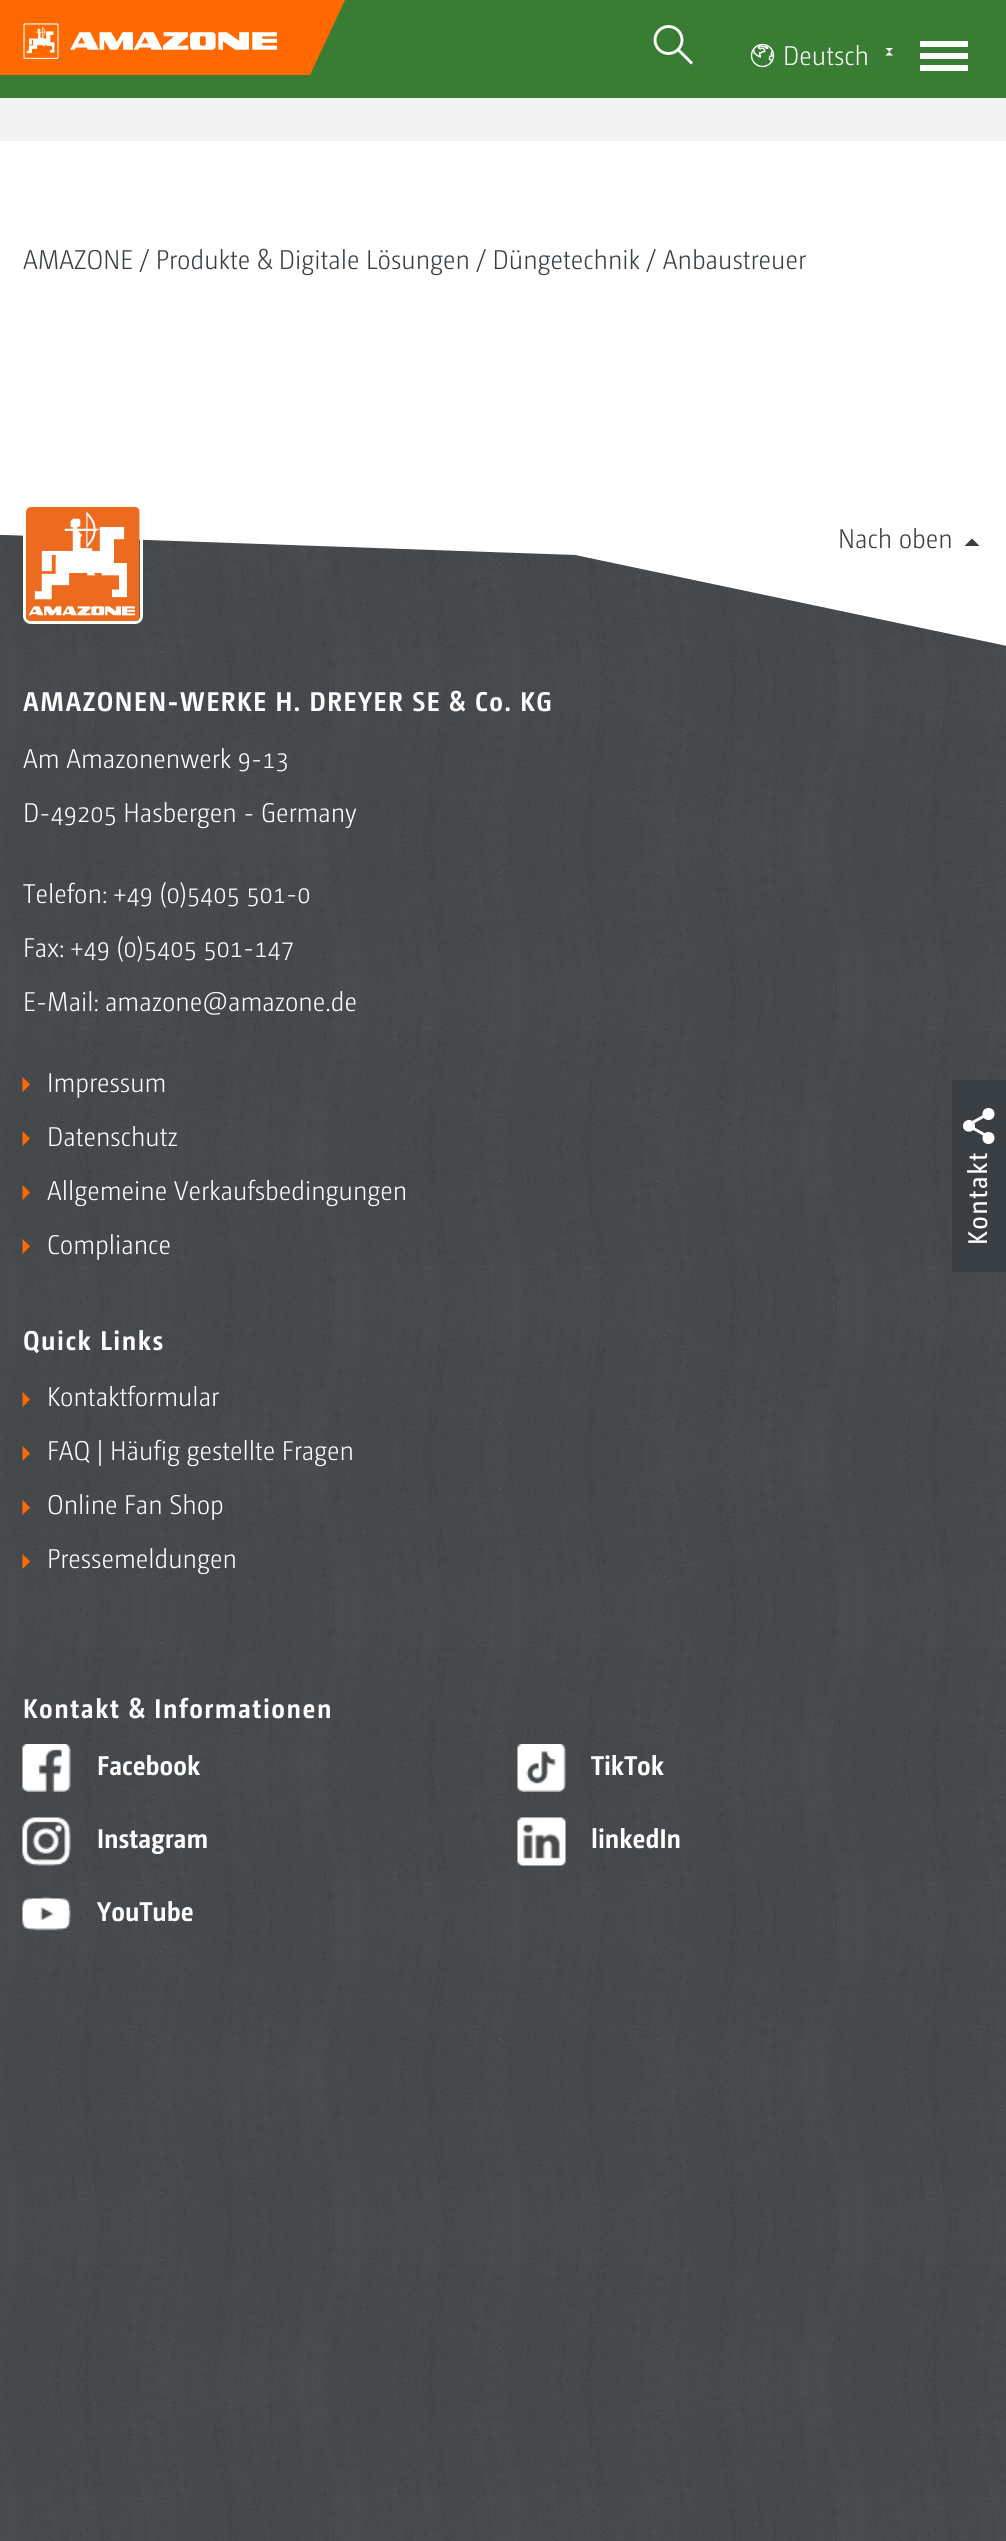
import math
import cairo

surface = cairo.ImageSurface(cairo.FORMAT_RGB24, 1006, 2541)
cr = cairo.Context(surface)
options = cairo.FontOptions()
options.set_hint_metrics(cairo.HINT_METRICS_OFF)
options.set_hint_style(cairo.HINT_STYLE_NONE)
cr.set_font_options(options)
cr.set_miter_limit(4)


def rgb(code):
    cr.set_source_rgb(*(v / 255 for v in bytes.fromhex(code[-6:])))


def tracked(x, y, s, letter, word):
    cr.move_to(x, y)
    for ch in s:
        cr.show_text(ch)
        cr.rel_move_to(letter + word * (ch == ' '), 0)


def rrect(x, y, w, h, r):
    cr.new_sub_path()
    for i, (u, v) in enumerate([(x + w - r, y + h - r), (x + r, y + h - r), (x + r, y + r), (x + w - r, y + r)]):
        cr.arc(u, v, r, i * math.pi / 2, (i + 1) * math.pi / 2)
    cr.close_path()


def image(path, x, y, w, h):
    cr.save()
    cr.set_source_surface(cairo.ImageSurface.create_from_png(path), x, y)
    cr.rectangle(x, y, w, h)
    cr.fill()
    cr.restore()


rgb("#ffffff")
cr.paint()
rgb("#387d33")
cr.rectangle(0, 0, 1006, 98)
cr.fill()
rgb("#ff6900")
cr.new_path()
cr.move_to(0, 0)
cr.line_to(0, 75)
cr.line_to(310, 75)
cr.line_to(345, 0)
cr.close_path()
cr.fill()
image("img/1.png", 23, 23, 255, 36)
cr.arc(668.5, 40, 13.5, 0, 2 * math.pi)
rgb("#ffffff")
cr.set_line_width(2.9)
cr.stroke()
cr.new_path()
cr.move_to(692, 63.5)
cr.line_to(678, 49.5)
cr.stroke()
image("img/2.png", 750, 43, 25, 25)
cr.new_path()
cr.move_to(885.5, 48)
cr.line_to(893, 48)
cr.line_to(885.5, 55.5)
cr.line_to(893, 55.5)
cr.close_path()
cr.fill()
for x, y, w, h, color in [
    (920, 41, 48, 6, "#ffffff"),
    (920, 53, 48, 6, "#ffffff"),
    (920, 65, 48, 6, "#ffffff"),
    (0, 98, 1006, 43, "#f3f3f4"),
]:
    rgb(color)
    cr.rectangle(x, y, w, h)
    cr.fill()
image("img/3.png", 0, 534, 1006, 2007)
rgb("#ffffff")
cr.set_fill_rule(cairo.FILL_RULE_EVEN_ODD)
cr.new_path()
cr.move_to(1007, 646)
cr.line_to(575, 555)
cr.line_to(-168, 529)
cr.line_to(-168, 377)
cr.line_to(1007, 377)
cr.close_path()
cr.fill()
rrect(24.5, 505.5, 117, 117, 6.5)
cr.set_line_width(3)
cr.stroke()
image("img/4.png", 26, 507, 114, 114)
rgb("#383e42")
cr.set_fill_rule(cairo.FILL_RULE_WINDING)
cr.new_path()
cr.move_to(979.5, 546)
cr.line_to(964.5, 546)
cr.line_to(972, 538.5)
cr.close_path()
cr.fill()
rgb("#ff6900")
cr.new_path()
cr.move_to(22.5, 1092)
cr.line_to(22.5, 1077)
cr.line_to(30, 1084.5)
cr.close_path()
cr.fill()
cr.new_path()
cr.move_to(22.5, 1146)
cr.line_to(22.5, 1131)
cr.line_to(30, 1138.5)
cr.close_path()
cr.fill()
cr.new_path()
cr.move_to(22.5, 1200)
cr.line_to(22.5, 1185)
cr.line_to(30, 1192.5)
cr.close_path()
cr.fill()
cr.new_path()
cr.move_to(22.5, 1254)
cr.line_to(22.5, 1239)
cr.line_to(30, 1246.5)
cr.close_path()
cr.fill()
cr.new_path()
cr.move_to(22.5, 1407)
cr.line_to(22.5, 1392)
cr.line_to(30, 1399.5)
cr.close_path()
cr.fill()
cr.new_path()
cr.move_to(22.5, 1461)
cr.line_to(22.5, 1446)
cr.line_to(30, 1453.5)
cr.close_path()
cr.fill()
cr.new_path()
cr.move_to(22.5, 1515)
cr.line_to(22.5, 1500)
cr.line_to(30, 1507.5)
cr.close_path()
cr.fill()
cr.new_path()
cr.move_to(22.5, 1569)
cr.line_to(22.5, 1554)
cr.line_to(30, 1561.5)
cr.close_path()
cr.fill()
image("img/5.png", 22, 1744, 49, 48)
image("img/6.png", 517, 1744, 49, 48)
image("img/7.png", 22, 1817, 49, 49)
image("img/8.png", 517, 1817, 49, 49)
image("img/9.png", 22, 1896, 49, 35)
rgb("#383e42")
cr.rectangle(952, 1080, 54, 192)
cr.fill()
rgb("#ffffff")
cr.new_path()
cr.move_to(990, 1139.5)
cr.line_to(970.5, 1128.5)
cr.line_to(972, 1126)
cr.line_to(991.5, 1137)
cr.close_path()
cr.move_to(970.5, 1122)
cr.line_to(990, 1111)
cr.line_to(991.5, 1113.5)
cr.line_to(972, 1124.5)
cr.close_path()
cr.fill()
cr.new_path()
cr.move_to(982.5, 1138)
cr.curve_to(982.5, 1130, 994.5, 1130, 994.5, 1138)
cr.curve_to(994.5, 1146, 982.5, 1146, 982.5, 1138)
cr.close_path()
cr.move_to(963, 1126)
cr.curve_to(963, 1118, 975, 1118, 975, 1126)
cr.curve_to(975, 1133.5, 963, 1133.5, 963, 1126)
cr.close_path()
cr.move_to(982.5, 1114)
cr.curve_to(982.5, 1106, 994.5, 1106, 994.5, 1114)
cr.curve_to(994.5, 1122, 982.5, 1122, 982.5, 1114)
cr.close_path()
cr.fill()
cr.select_font_face("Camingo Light")
cr.set_font_size(27)
cr.move_to(783, 65)
cr.show_text("Deutsch")
rgb("#383e42")
cr.move_to(23, 269)
cr.show_text("AMAZONE / Produkte & Digitale Lösungen / Düngetechnik / Anbaustreuer")
cr.move_to(838, 548)
cr.show_text("Nach oben")
cr.select_font_face("Camingo", cairo.FONT_SLANT_NORMAL, cairo.FONT_WEIGHT_BOLD)
rgb("#ffffff")
tracked(23, 711, "AMAZONEN-WERKE H. DREYER SE & Co. KG", 1.5, 0)
cr.select_font_face("Camingo Light")
for x, y, s in [
    (23, 768, "Am Amazonenwerk 9-13"),
    (23, 822, "D-49205 Hasbergen - Germany"),
    (23, 903, "Telefon: +49 (0)5405 501-0"),
    (23, 957, "Fax: +49 (0)5405 501-147"),
    (23, 1011, "E-Mail: amazone@amazone.de"),
    (47, 1092, "Impressum"),
    (47, 1146, "Datenschutz"),
    (47, 1200, "Allgemeine Verkaufsbedingungen"),
    (47, 1254, "Compliance"),
]:
    cr.move_to(x, y)
    cr.show_text(s)
cr.select_font_face("Camingo", cairo.FONT_SLANT_NORMAL, cairo.FONT_WEIGHT_BOLD)
tracked(23, 1350, "Quick Links", 1.5, 0)
cr.select_font_face("Camingo Light")
for x, y, s in [
    (47, 1406, "Kontaktformular"),
    (47, 1460, "FAQ | Häufig gestellte Fragen"),
    (47, 1514, "Online Fan Shop"),
    (47, 1568, "Pressemeldungen"),
]:
    cr.move_to(x, y)
    cr.show_text(s)
cr.select_font_face("Camingo", cairo.FONT_SLANT_NORMAL, cairo.FONT_WEIGHT_BOLD)
tracked(23, 1718, "Kontakt & Informationen", 1.5, 0)
for x, y, s in [
    (97, 1775, "Facebook"),
    (591, 1775, "TikTok"),
    (97, 1848, "Instagram"),
    (591, 1848, "linkedIn"),
    (97, 1921, "YouTube"),
]:
    cr.move_to(x, y)
    cr.show_text(s)
cr.select_font_face("Camingo")
cr.save()
cr.translate(987, 1245)
cr.rotate(-90 * math.pi / 180)
tracked(0, 0, "Kontakt", 1.5, 0)
cr.restore()
surface.write_to_png("page.png")
